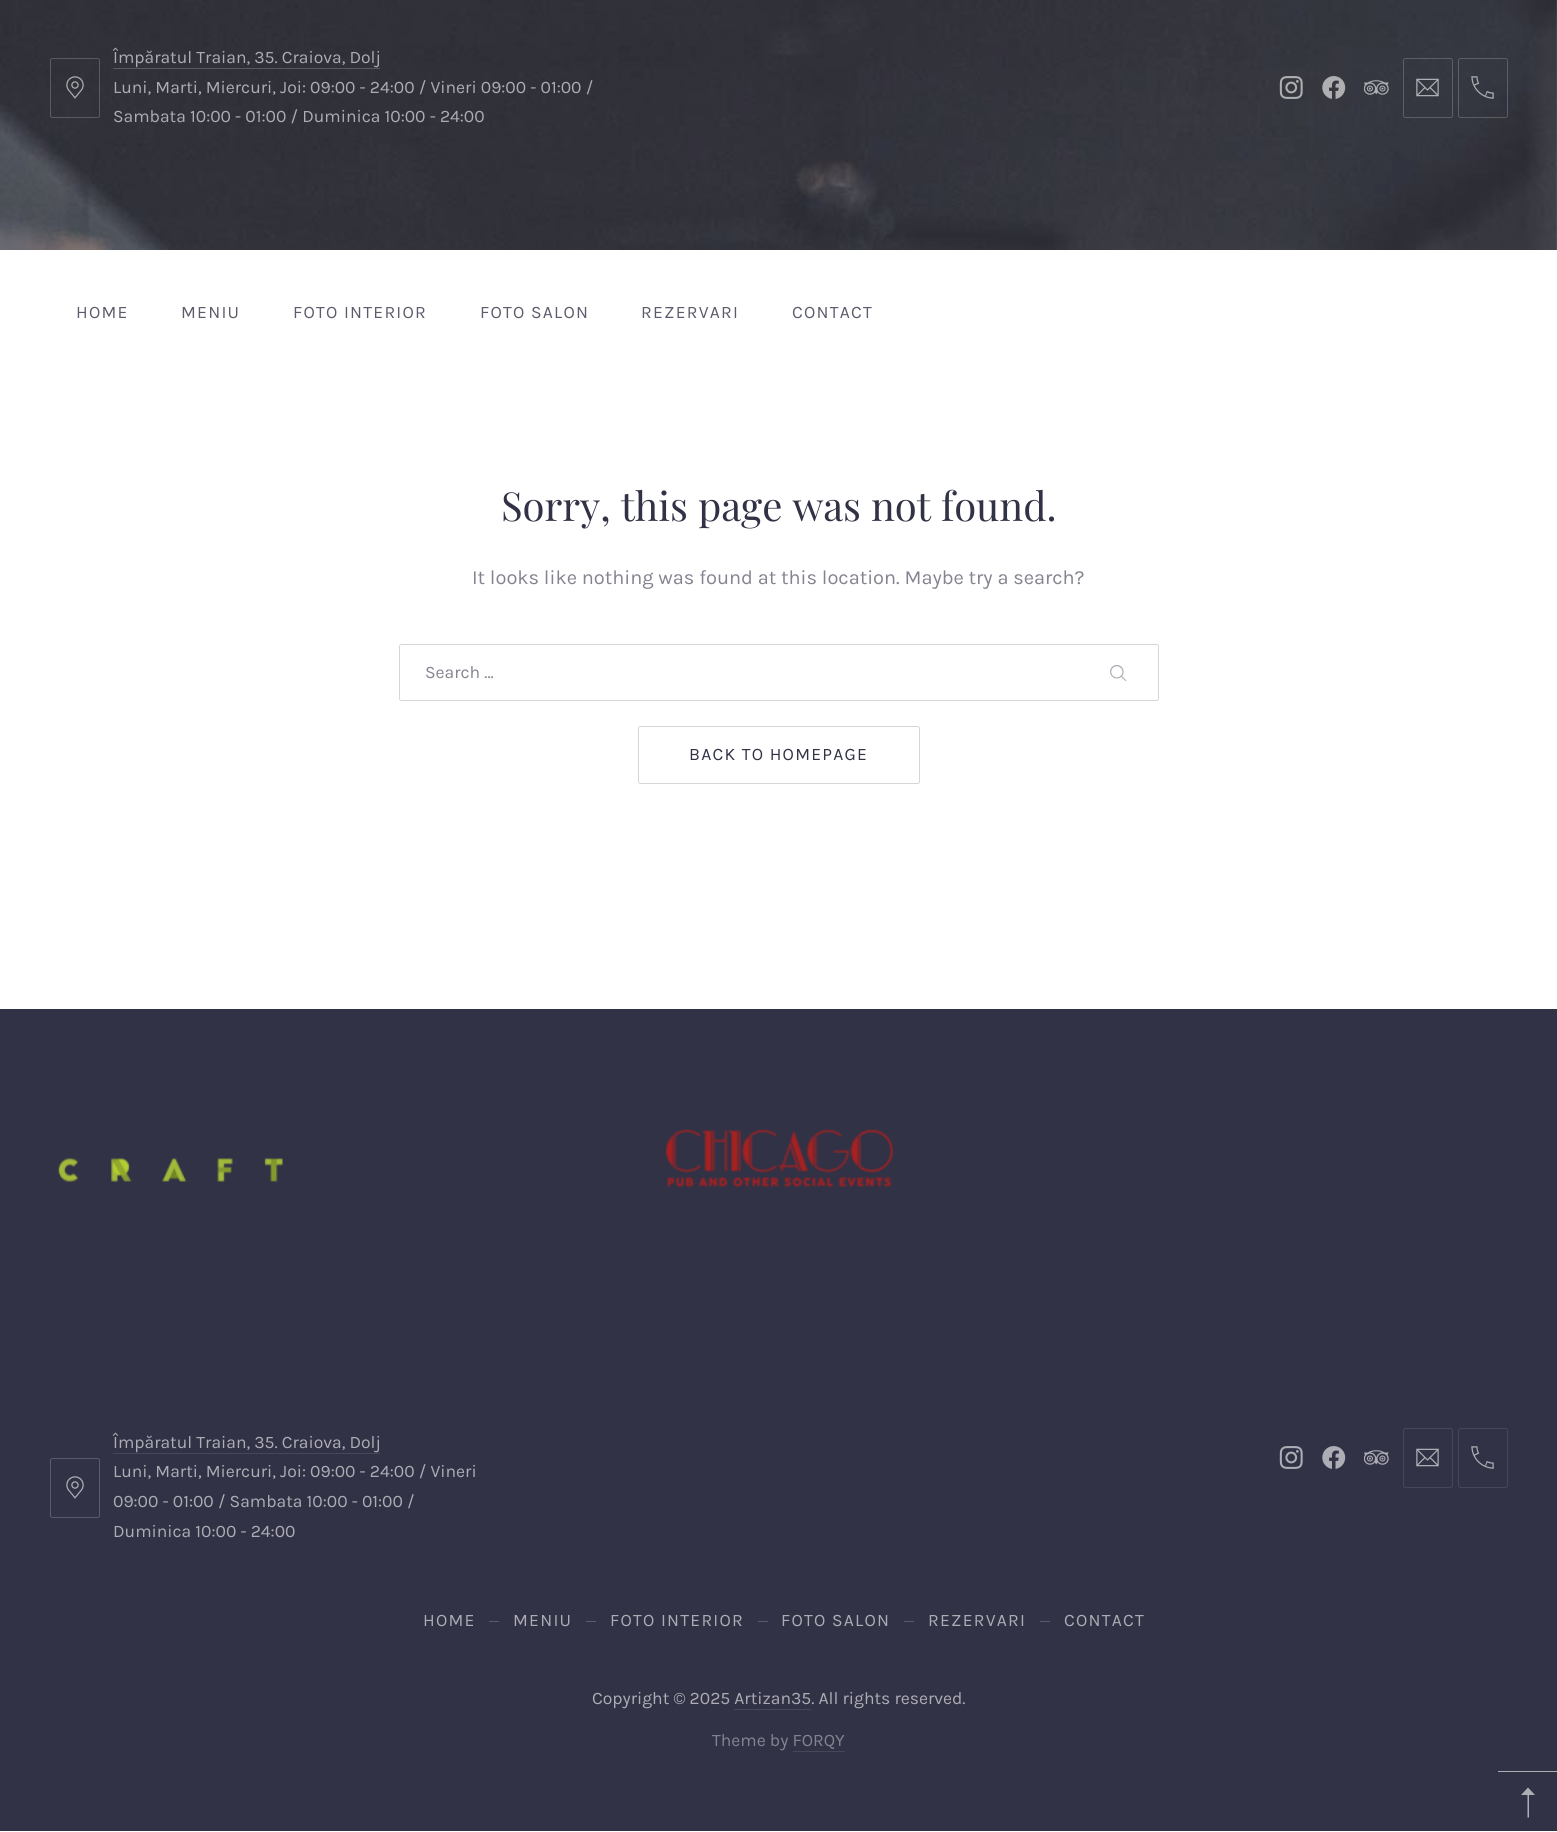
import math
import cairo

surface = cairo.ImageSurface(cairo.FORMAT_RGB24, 1557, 1832)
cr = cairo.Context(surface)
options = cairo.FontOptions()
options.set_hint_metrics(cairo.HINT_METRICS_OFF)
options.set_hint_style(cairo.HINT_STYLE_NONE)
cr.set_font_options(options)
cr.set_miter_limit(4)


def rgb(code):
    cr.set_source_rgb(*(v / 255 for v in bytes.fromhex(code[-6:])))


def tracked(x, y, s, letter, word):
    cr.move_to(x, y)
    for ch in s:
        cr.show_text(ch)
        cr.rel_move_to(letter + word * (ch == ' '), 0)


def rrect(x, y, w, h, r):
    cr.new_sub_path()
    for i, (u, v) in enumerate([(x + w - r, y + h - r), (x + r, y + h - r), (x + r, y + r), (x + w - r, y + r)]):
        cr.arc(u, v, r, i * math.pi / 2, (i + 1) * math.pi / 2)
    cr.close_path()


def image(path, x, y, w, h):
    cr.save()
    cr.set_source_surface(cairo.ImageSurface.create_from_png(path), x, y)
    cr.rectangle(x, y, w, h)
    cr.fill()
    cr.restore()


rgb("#ffffff")
cr.paint()
image("img/1.png", 0, 0, 1557, 250)
image("img/2.png", 66, 76, 18, 23)
rrect(50.5, 58.5, 49, 59, 2)
cr.set_source_rgba(1, 1, 1, 0.2)
cr.set_line_width(1)
cr.stroke()
cr.rectangle(113, 68, 267, 1)
cr.fill()
image("img/3.png", 1279, 76, 24, 23)
image("img/4.png", 1322, 76, 24, 23)
image("img/5.png", 1364, 80, 25, 15)
rrect(1403.5, 58.5, 49, 59, 2)
cr.stroke()
image("img/6.png", 1416, 78, 23, 19)
rrect(1458.5, 58.5, 49, 59, 2)
cr.stroke()
image("img/7.png", 1471, 76, 23, 23)
rrect(399.5, 644.5, 759, 56, 2)
rgb("#d6d6da")
cr.stroke()
image("img/8.png", 1110, 664, 17, 17)
rrect(638.5, 726.5, 281, 57, 2)
cr.set_source_rgba(0.196, 0.196, 0.275, 0.2)
cr.stroke()
rgb("#323246")
cr.rectangle(0, 1009, 1557, 822)
cr.fill()
image("img/9.png", 58, 1158, 225, 24)
image("img/10.png", 665, 1129, 229, 58)
image("img/11.png", 66, 1476, 18, 23)
rrect(50.5, 1458.5, 49, 59, 2)
rgb("#5b5b6b")
cr.stroke()
rgb("#474759")
cr.rectangle(113, 1453, 267, 1)
cr.fill()
image("img/12.png", 1279, 1446, 24, 23)
image("img/13.png", 1322, 1446, 24, 23)
image("img/14.png", 1364, 1450, 25, 15)
rrect(1403.5, 1428.5, 49, 59, 2)
cr.stroke()
image("img/15.png", 1416, 1448, 23, 19)
rrect(1458.5, 1428.5, 49, 59, 2)
cr.stroke()
image("img/16.png", 1471, 1446, 23, 23)
for x, y, w, h, color in [
    (489, 1621, 10, 1, "#5b5b6b"),
    (586, 1621, 10, 1, "#5b5b6b"),
    (758, 1621, 10, 1, "#5b5b6b"),
    (904, 1621, 10, 1, "#5b5b6b"),
    (1040, 1621, 10, 1, "#5b5b6b"),
    (734, 1709, 77, 1, "#474759"),
    (793, 1751, 52, 1, "#474759"),
    (1498, 1771, 59, 1, "#adadb5"),
]:
    rgb(color)
    cr.rectangle(x, y, w, h)
    cr.fill()
cr.new_path()
cr.move_to(1528, 1787.5)
cr.line_to(1521, 1795)
cr.line_to(1527.5, 1795)
cr.line_to(1527.5, 1817.5)
cr.line_to(1529, 1817.5)
cr.line_to(1529, 1795)
cr.line_to(1535, 1795)
cr.close_path()
cr.fill()
cr.select_font_face("Karla")
cr.set_font_size(17.5)
for x, y, s in [
    (113, 63, "Împăratul Traian, 35. Craiova, Dolj"),
    (113, 93, "Luni, Marti, Miercuri, Joi: 09:00 - 24:00 / Vineri 09:00 - 01:00 /"),
    (113, 122, "Sambata 10:00 - 01:00 / Duminica 10:00 - 24:00"),
]:
    cr.move_to(x, y)
    cr.show_text(s)
rgb("#5b5b6b")
for x, y, s in [
    (76, 318, "HOME"),
    (181, 318, "MENIU"),
    (293, 318, "FOTO INTERIOR"),
    (480, 318, "FOTO SALON"),
    (641, 318, "REZERVARI"),
    (792, 318, "CONTACT"),
]:
    tracked(x, y, s, 1.25, 0)
cr.select_font_face("Playfair Display")
cr.set_font_size(40)
rgb("#323246")
cr.move_to(501, 521)
cr.show_text("Sorry, this page was not found.")
cr.select_font_face("Karla")
cr.set_font_size(20)
rgb("#848490")
cr.move_to(472, 584)
cr.show_text("It looks like nothing was found at this location. Maybe try a search?")
cr.set_font_size(17.5)
cr.move_to(425, 678)
cr.show_text("Search ...")
rgb("#323246")
tracked(689, 760, "BACK TO HOMEPAGE", 1.25, 0)
rgb("#adadb5")
for x, y, s in [
    (113, 1448, "Împăratul Traian, 35. Craiova, Dolj"),
    (113, 1477, "Luni, Marti, Miercuri, Joi: 09:00 - 24:00 / Vineri"),
    (113, 1507, "09:00 - 01:00 / Sambata 10:00 - 01:00 /"),
    (113, 1537, "Duminica 10:00 - 24:00"),
]:
    cr.move_to(x, y)
    cr.show_text(s)
for x, y, s in [
    (423, 1626, "HOME"),
    (513, 1626, "MENIU"),
    (610, 1626, "FOTO INTERIOR"),
    (781, 1626, "FOTO SALON"),
    (928, 1626, "REZERVARI"),
    (1064, 1626, "CONTACT"),
]:
    tracked(x, y, s, 1.25, 0)
cr.move_to(592, 1704)
cr.show_text("Copyright © 2025 Artizan35. All rights reserved.")
rgb("#848490")
cr.move_to(712, 1746)
cr.show_text("Theme by FORQY")
surface.write_to_png("page.png")
